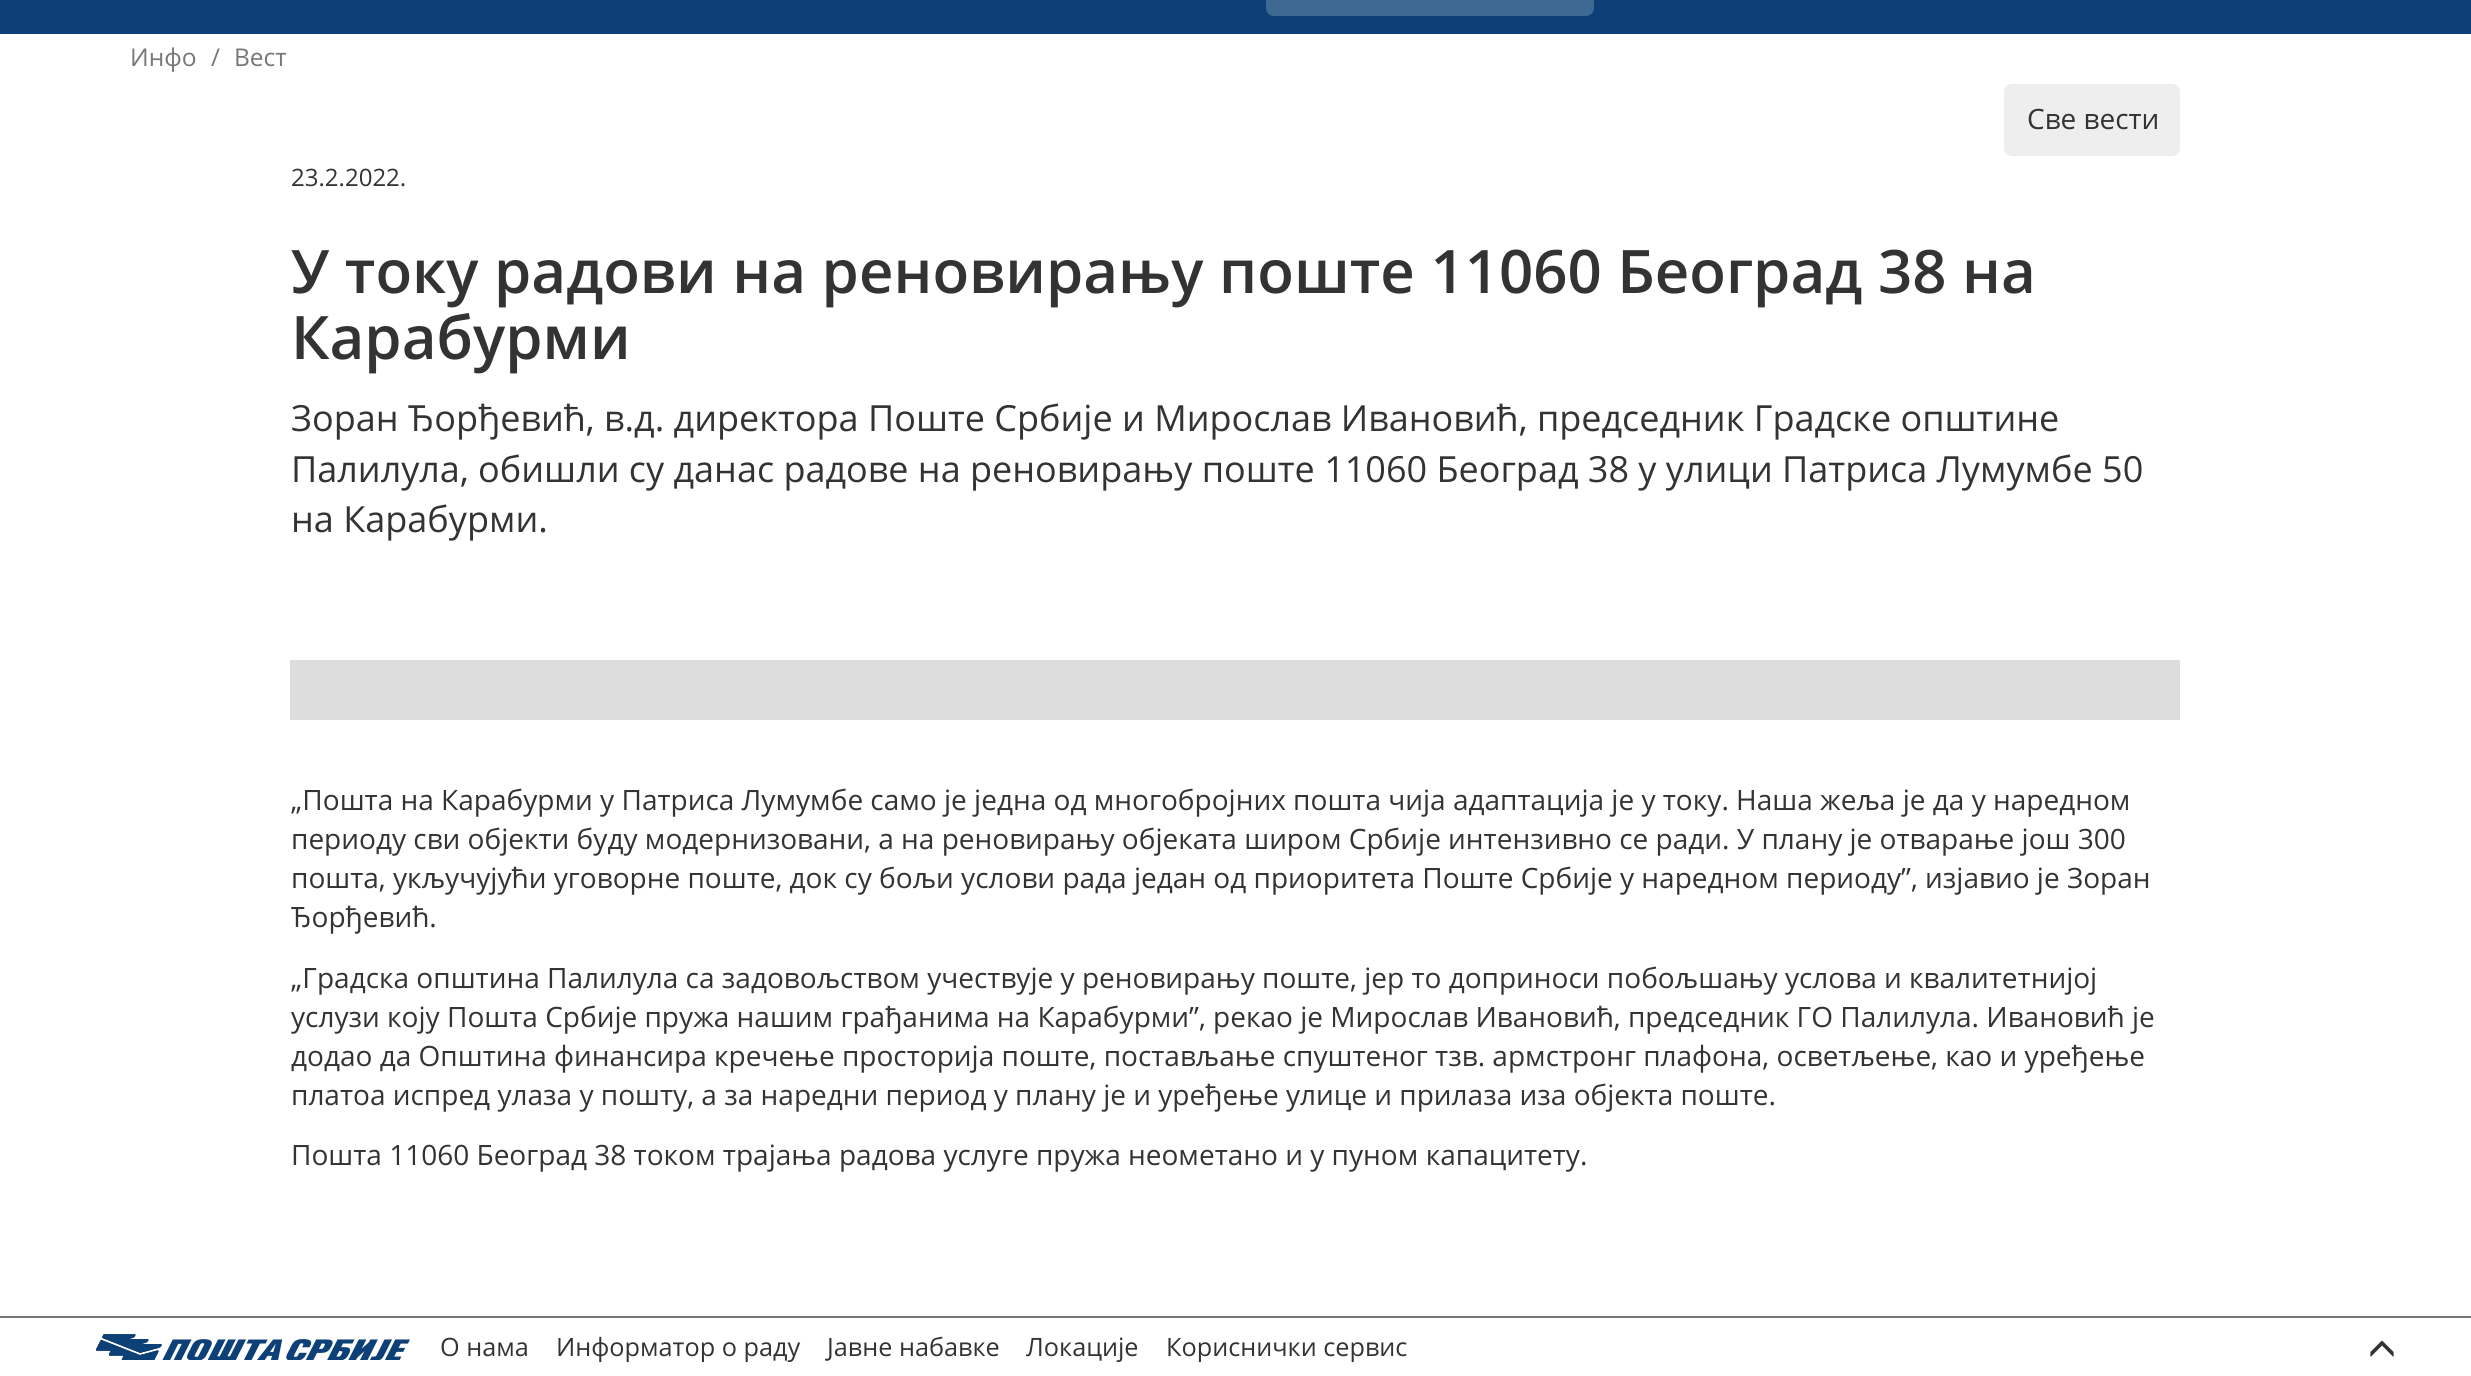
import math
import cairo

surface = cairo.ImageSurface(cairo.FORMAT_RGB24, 2471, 1376)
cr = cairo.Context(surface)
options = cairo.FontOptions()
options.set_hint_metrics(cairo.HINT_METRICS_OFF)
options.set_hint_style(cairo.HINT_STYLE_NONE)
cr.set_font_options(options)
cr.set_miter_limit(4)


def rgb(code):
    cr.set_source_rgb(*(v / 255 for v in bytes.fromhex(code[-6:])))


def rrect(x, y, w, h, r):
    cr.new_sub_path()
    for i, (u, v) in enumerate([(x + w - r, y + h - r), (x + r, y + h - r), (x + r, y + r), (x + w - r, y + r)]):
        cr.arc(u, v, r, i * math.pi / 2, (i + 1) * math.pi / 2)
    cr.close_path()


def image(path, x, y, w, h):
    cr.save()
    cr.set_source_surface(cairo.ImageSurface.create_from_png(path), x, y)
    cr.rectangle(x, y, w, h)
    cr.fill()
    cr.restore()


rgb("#ffffff")
cr.paint()
rgb("#0c4076")
cr.rectangle(0, 0, 2471, 34)
cr.fill()
rgb("#3f6893")
rrect(1266, -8, 328, 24, 8)
cr.fill()
rgb("#eeeeee")
rrect(2004, 84, 176, 72, 8)
cr.fill()
rgb("#dddddd")
cr.rectangle(290, 660, 1890, 60)
cr.fill()
rgb("#777777")
cr.rectangle(0, 1316, 2471, 2)
cr.fill()
image("img/1.png", 96, 1334, 314, 26)
image("img/2.png", 2370, 1340, 24, 17)
cr.select_font_face("Open Sans")
cr.set_font_size(24.5)
for x, y, s in [
    (130, 66, "Инфо"),
    (211, 66, "/"),
    (234, 66, "Вест"),
]:
    cr.move_to(x, y)
    cr.show_text(s)
cr.set_font_size(28)
rgb("#333333")
cr.move_to(2027, 129)
cr.show_text("Све вести")
cr.set_font_size(24)
cr.move_to(291, 186)
cr.show_text("23.2.2022.")
cr.select_font_face("Open Sans SemiBold")
cr.set_font_size(60)
cr.move_to(291, 293)
cr.show_text("У току радови на реновирању поште 11060 Београд 38 на")
cr.move_to(291, 359)
cr.show_text("Карабурми")
cr.select_font_face("Open Sans")
cr.set_font_size(36)
for x, y, s in [
    (291, 431, "Зоран Ђорђевић, в.д. директора Поште Србије и Мирослав Ивановић, председник Градске општине"),
    (291, 482, "Палилула, обишли су данас радове на реновирању поште 11060 Београд 38 у улици Патриса Лумумбе 50"),
    (291, 532, "на Карабурми."),
]:
    cr.move_to(x, y)
    cr.show_text(s)
cr.set_font_size(28)
for x, y, s in [
    (291, 810, "„Пошта на Карабурми у Патриса Лумумбе само је једна од многобројних пошта чија адаптација je у току. Наша жеља је да у наредном"),
    (291, 849, "периоду сви објекти буду модернизовани, а на реновирању објеката широм Србије интензивно се ради. У плану је отварање још 300"),
    (291, 888, "пошта, укључујући уговорне поште, док су бољи услови рада један од приоритета Поште Србије у наредном периоду”, изјавио је Зоран"),
    (291, 927, "Ђорђевић."),
    (291, 988, "„Градска општина Палилула са задовољством учествује у реновирању поште, јер то доприноси побољшању услова и квалитетнијој"),
    (291, 1027, "услузи коју Пошта Србије пружа нашим грађанима на Карабурми”, рекао је Мирослав Ивановић, председник ГО Палилула. Ивановић је"),
    (291, 1066, "додао да Општина финансира кречење просторија поште, постављање спуштеног тзв. армстронг плафона, осветљење, као и уређење"),
    (291, 1105, "платоа испред улаза у пошту, а за наредни период у плану је и уређење улице и прилаза иза објекта поште."),
    (291, 1165, "Пошта 11060 Београд 38 током трајања радова услуге пружа неометано и у пуном капацитету."),
]:
    cr.move_to(x, y)
    cr.show_text(s)
cr.set_font_size(25.25)
for x, y, s in [
    (440, 1356, "О нама"),
    (556, 1356, "Информатор о раду"),
    (827, 1356, "Јавне набавке"),
    (1026, 1356, "Локације"),
    (1166, 1356, "Кориснички сервис"),
]:
    cr.move_to(x, y)
    cr.show_text(s)
surface.write_to_png("page.png")
